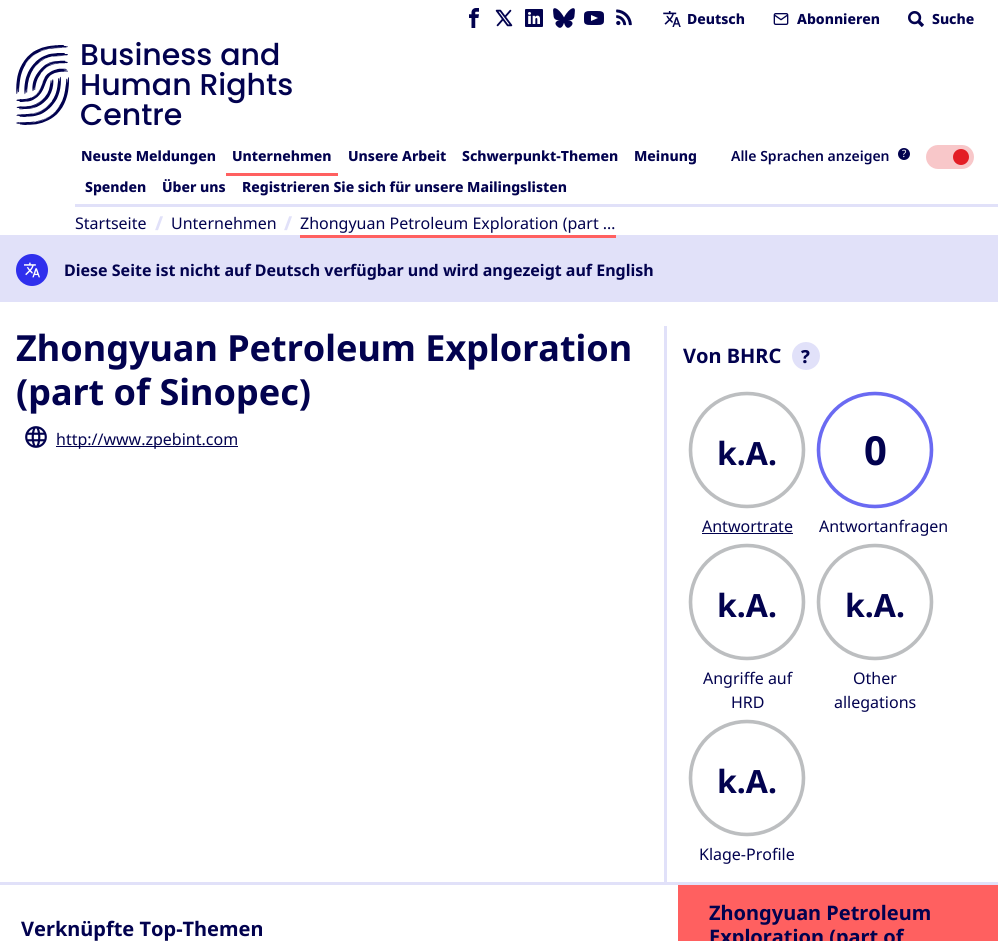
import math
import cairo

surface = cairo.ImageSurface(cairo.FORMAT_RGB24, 998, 941)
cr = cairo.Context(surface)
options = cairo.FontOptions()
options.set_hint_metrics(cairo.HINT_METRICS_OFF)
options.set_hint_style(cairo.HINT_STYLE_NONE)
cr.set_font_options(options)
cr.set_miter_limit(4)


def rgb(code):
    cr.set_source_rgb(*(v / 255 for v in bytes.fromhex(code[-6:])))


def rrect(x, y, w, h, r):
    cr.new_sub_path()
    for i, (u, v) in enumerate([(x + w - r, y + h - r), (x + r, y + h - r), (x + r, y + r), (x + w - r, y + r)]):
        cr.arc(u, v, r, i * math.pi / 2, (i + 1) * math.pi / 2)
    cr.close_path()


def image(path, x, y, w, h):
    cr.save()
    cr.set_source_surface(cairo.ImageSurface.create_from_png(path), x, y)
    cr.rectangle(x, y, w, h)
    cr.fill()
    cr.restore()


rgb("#ffffff")
cr.paint()
image("img/1.png", 469, 8, 10, 20)
image("img/2.png", 495, 9, 18, 18)
image("img/3.png", 525, 9, 18, 18)
image("img/4.png", 553, 8, 22, 20)
image("img/5.png", 584, 11, 20, 14)
image("img/6.png", 616, 9, 16, 17)
image("img/7.png", 663, 11, 18, 16)
image("img/8.png", 773, 13, 16, 12)
image("img/9.png", 908, 11, 16, 16)
image("img/10.png", 16, 45, 53, 80)
rgb("#e1e1f9")
cr.rectangle(75, 204, 923, 3)
cr.fill()
rgb("#ff6060")
cr.rectangle(226, 173, 112, 3)
cr.fill()
rgb("#02024f")
cr.arc(904, 154, 6, 0, 2 * math.pi)
cr.fill()
rgb("#f8c7c9")
rrect(926, 145, 48, 24, 12)
cr.fill()
rgb("#e31d25")
cr.arc(961, 157, 8, 0, 2 * math.pi)
cr.fill()
rgb("#e1e1f9")
cr.rectangle(0, 235, 998, 67)
cr.fill()
rgb("#ff6060")
cr.rectangle(300, 235, 316, 3)
cr.fill()
rgb("#2f2fed")
cr.arc(32, 270, 16, 0, 2 * math.pi)
cr.fill()
image("img/11.png", 24, 262, 16, 16)
rgb("#e1e1f9")
cr.rectangle(0, 326, 998, 559)
cr.fill()
rgb("#ffffff")
cr.rectangle(0, 326, 664, 556)
cr.fill()
image("img/12.png", 25, 426, 22, 22)
rgb("#02024f")
cr.rectangle(56, 446, 182, 1)
cr.fill()
rgb("#ffffff")
cr.rectangle(667, 326, 331, 556)
cr.fill()
rgb("#e1e1f9")
cr.arc(806, 356, 14, 0, 2 * math.pi)
cr.fill()
cr.new_path()
cr.move_to(747, 393.5)
cr.curve_to(778.5, 393.5, 803.5, 418.5, 803.5, 450)
cr.curve_to(803.5, 481.5, 778.5, 506.5, 747, 506.5)
cr.curve_to(715.5, 506.5, 690.5, 481.5, 690.5, 450)
cr.curve_to(690.5, 418.5, 715.5, 393.5, 747, 393.5)
rgb("#bcbec0")
cr.set_line_width(3.6)
cr.set_line_cap(cairo.LINE_CAP_ROUND)
cr.stroke()
rgb("#02024f")
cr.rectangle(702, 533, 91, 1)
cr.fill()
cr.new_path()
cr.move_to(875, 393.5)
cr.curve_to(906.5, 393.5, 931.5, 418.5, 931.5, 450)
cr.curve_to(931.5, 481.5, 906.5, 506.5, 875, 506.5)
cr.curve_to(843.5, 506.5, 818.5, 481.5, 818.5, 450)
cr.curve_to(818.5, 418.5, 843.5, 393.5, 875, 393.5)
rgb("#6a6af2")
cr.stroke()
cr.new_path()
cr.move_to(747, 545.5)
cr.curve_to(778.5, 545.5, 803.5, 570.5, 803.5, 602)
cr.curve_to(803.5, 633.5, 778.5, 658.5, 747, 658.5)
cr.curve_to(715.5, 658.5, 690.5, 633.5, 690.5, 602)
cr.curve_to(690.5, 570.5, 715.5, 545.5, 747, 545.5)
rgb("#bcbec0")
cr.stroke()
cr.new_path()
cr.move_to(875, 545.5)
cr.curve_to(906.5, 545.5, 931.5, 570.5, 931.5, 602)
cr.curve_to(931.5, 633.5, 906.5, 658.5, 875, 658.5)
cr.curve_to(843.5, 658.5, 818.5, 633.5, 818.5, 602)
cr.curve_to(818.5, 570.5, 843.5, 545.5, 875, 545.5)
cr.stroke()
cr.new_path()
cr.move_to(747, 721.5)
cr.curve_to(778.5, 721.5, 803.5, 746.5, 803.5, 778)
cr.curve_to(803.5, 809.5, 778.5, 834.5, 747, 834.5)
cr.curve_to(715.5, 834.5, 690.5, 809.5, 690.5, 778)
cr.curve_to(690.5, 746.5, 715.5, 721.5, 747, 721.5)
cr.stroke()
rgb("#ff6060")
cr.rectangle(678, 885, 320, 56)
cr.fill()
cr.select_font_face("Noto Sans ExtraBold")
cr.set_font_size(14)
rgb("#02024f")
for x, y, s in [
    (687, 24, "Deutsch"),
    (797, 24, "Abonnieren"),
    (932, 24, "Suche"),
]:
    cr.move_to(x, y)
    cr.show_text(s)
cr.select_font_face("Poppins Medium")
cr.set_font_size(30)
for x, y, s in [
    (80, 65, "Business and"),
    (80, 95, "Human Rights"),
    (80, 125, "Centre"),
]:
    cr.move_to(x, y)
    cr.show_text(s)
cr.select_font_face("Noto Sans ExtraBold")
cr.set_font_size(14)
for x, y, s in [
    (81, 161, "Neuste Meldungen"),
    (232, 161, "Unternehmen"),
    (348, 161, "Unsere Arbeit"),
    (462, 161, "Schwerpunkt-Themen"),
    (634, 161, "Meinung"),
    (85, 192, "Spenden"),
    (162, 192, "Über uns"),
    (242, 192, "Registrieren Sie sich für unsere Mailingslisten"),
]:
    cr.move_to(x, y)
    cr.show_text(s)
cr.select_font_face("Noto Sans SemiBold")
cr.move_to(731, 161)
cr.show_text("Alle Sprachen anzeigen")
cr.select_font_face("Noto Sans")
cr.set_font_size(10)
rgb("#ffffff")
cr.move_to(902, 157)
cr.show_text("?")
cr.set_font_size(16)
rgb("#02024f")
cr.move_to(75, 229)
cr.show_text("Startseite")
cr.select_font_face("Noto Sans ExtraBold")
cr.set_font_size(19)
rgb("#e1e1f9")
cr.move_to(155, 230)
cr.show_text("/")
cr.select_font_face("Noto Sans")
cr.set_font_size(16)
rgb("#02024f")
cr.move_to(171, 229)
cr.show_text("Unternehmen")
cr.select_font_face("Noto Sans ExtraBold")
cr.set_font_size(19)
rgb("#e1e1f9")
cr.move_to(284, 230)
cr.show_text("/")
cr.select_font_face("Noto Sans")
cr.set_font_size(16)
rgb("#02024f")
cr.move_to(300, 229)
cr.show_text("Zhongyuan Petroleum Exploration (part …")
cr.select_font_face("Noto Sans", cairo.FONT_SLANT_NORMAL, cairo.FONT_WEIGHT_BOLD)
cr.move_to(64, 276)
cr.show_text("Diese Seite ist nicht auf Deutsch verfügbar und wird angezeigt auf English")
cr.set_font_size(36)
cr.move_to(16, 361)
cr.show_text("Zhongyuan Petroleum Exploration")
cr.move_to(16, 405)
cr.show_text("(part of Sinopec)")
cr.select_font_face("Noto Sans")
cr.set_font_size(16)
cr.move_to(56, 445)
cr.show_text("http://www.zpebint.com")
cr.select_font_face("Noto Sans", cairo.FONT_SLANT_NORMAL, cairo.FONT_WEIGHT_BOLD)
cr.set_font_size(20)
cr.move_to(683, 363)
cr.show_text("Von BHRC")
cr.select_font_face("Noto Sans ExtraBold")
cr.set_font_size(18)
cr.move_to(801, 363)
cr.show_text("?")
cr.select_font_face("Noto Sans", cairo.FONT_SLANT_NORMAL, cairo.FONT_WEIGHT_BOLD)
cr.set_font_size(32)
cr.move_to(717, 465)
cr.show_text("k.A.")
cr.select_font_face("Noto Sans")
cr.set_font_size(16)
cr.move_to(702, 532)
cr.show_text("Antwortrate")
cr.select_font_face("Noto Sans", cairo.FONT_SLANT_NORMAL, cairo.FONT_WEIGHT_BOLD)
cr.set_font_size(40)
cr.move_to(864, 465)
cr.show_text("0")
cr.select_font_face("Noto Sans")
cr.set_font_size(16)
cr.move_to(819, 532)
cr.show_text("Antwortanfragen")
cr.select_font_face("Noto Sans", cairo.FONT_SLANT_NORMAL, cairo.FONT_WEIGHT_BOLD)
cr.set_font_size(32)
cr.move_to(717, 617)
cr.show_text("k.A.")
cr.select_font_face("Noto Sans")
cr.set_font_size(16)
cr.move_to(703, 684)
cr.show_text("Angriffe auf")
cr.move_to(731, 708)
cr.show_text("HRD")
cr.select_font_face("Noto Sans", cairo.FONT_SLANT_NORMAL, cairo.FONT_WEIGHT_BOLD)
cr.set_font_size(32)
cr.move_to(845, 617)
cr.show_text("k.A.")
cr.select_font_face("Noto Sans")
cr.set_font_size(16)
cr.move_to(853, 684)
cr.show_text("Other")
cr.move_to(834, 708)
cr.show_text("allegations")
cr.select_font_face("Noto Sans", cairo.FONT_SLANT_NORMAL, cairo.FONT_WEIGHT_BOLD)
cr.set_font_size(32)
cr.move_to(717, 793)
cr.show_text("k.A.")
cr.select_font_face("Noto Sans")
cr.set_font_size(16)
cr.move_to(699, 860)
cr.show_text("Klage-Profile")
cr.select_font_face("Noto Sans", cairo.FONT_SLANT_NORMAL, cairo.FONT_WEIGHT_BOLD)
cr.set_font_size(20)
for x, y, s in [
    (21, 936, "Verknüpfte Top-Themen"),
    (709, 920, "Zhongyuan Petroleum"),
    (709, 944, "Exploration (part of"),
]:
    cr.move_to(x, y)
    cr.show_text(s)
surface.write_to_png("page.png")
